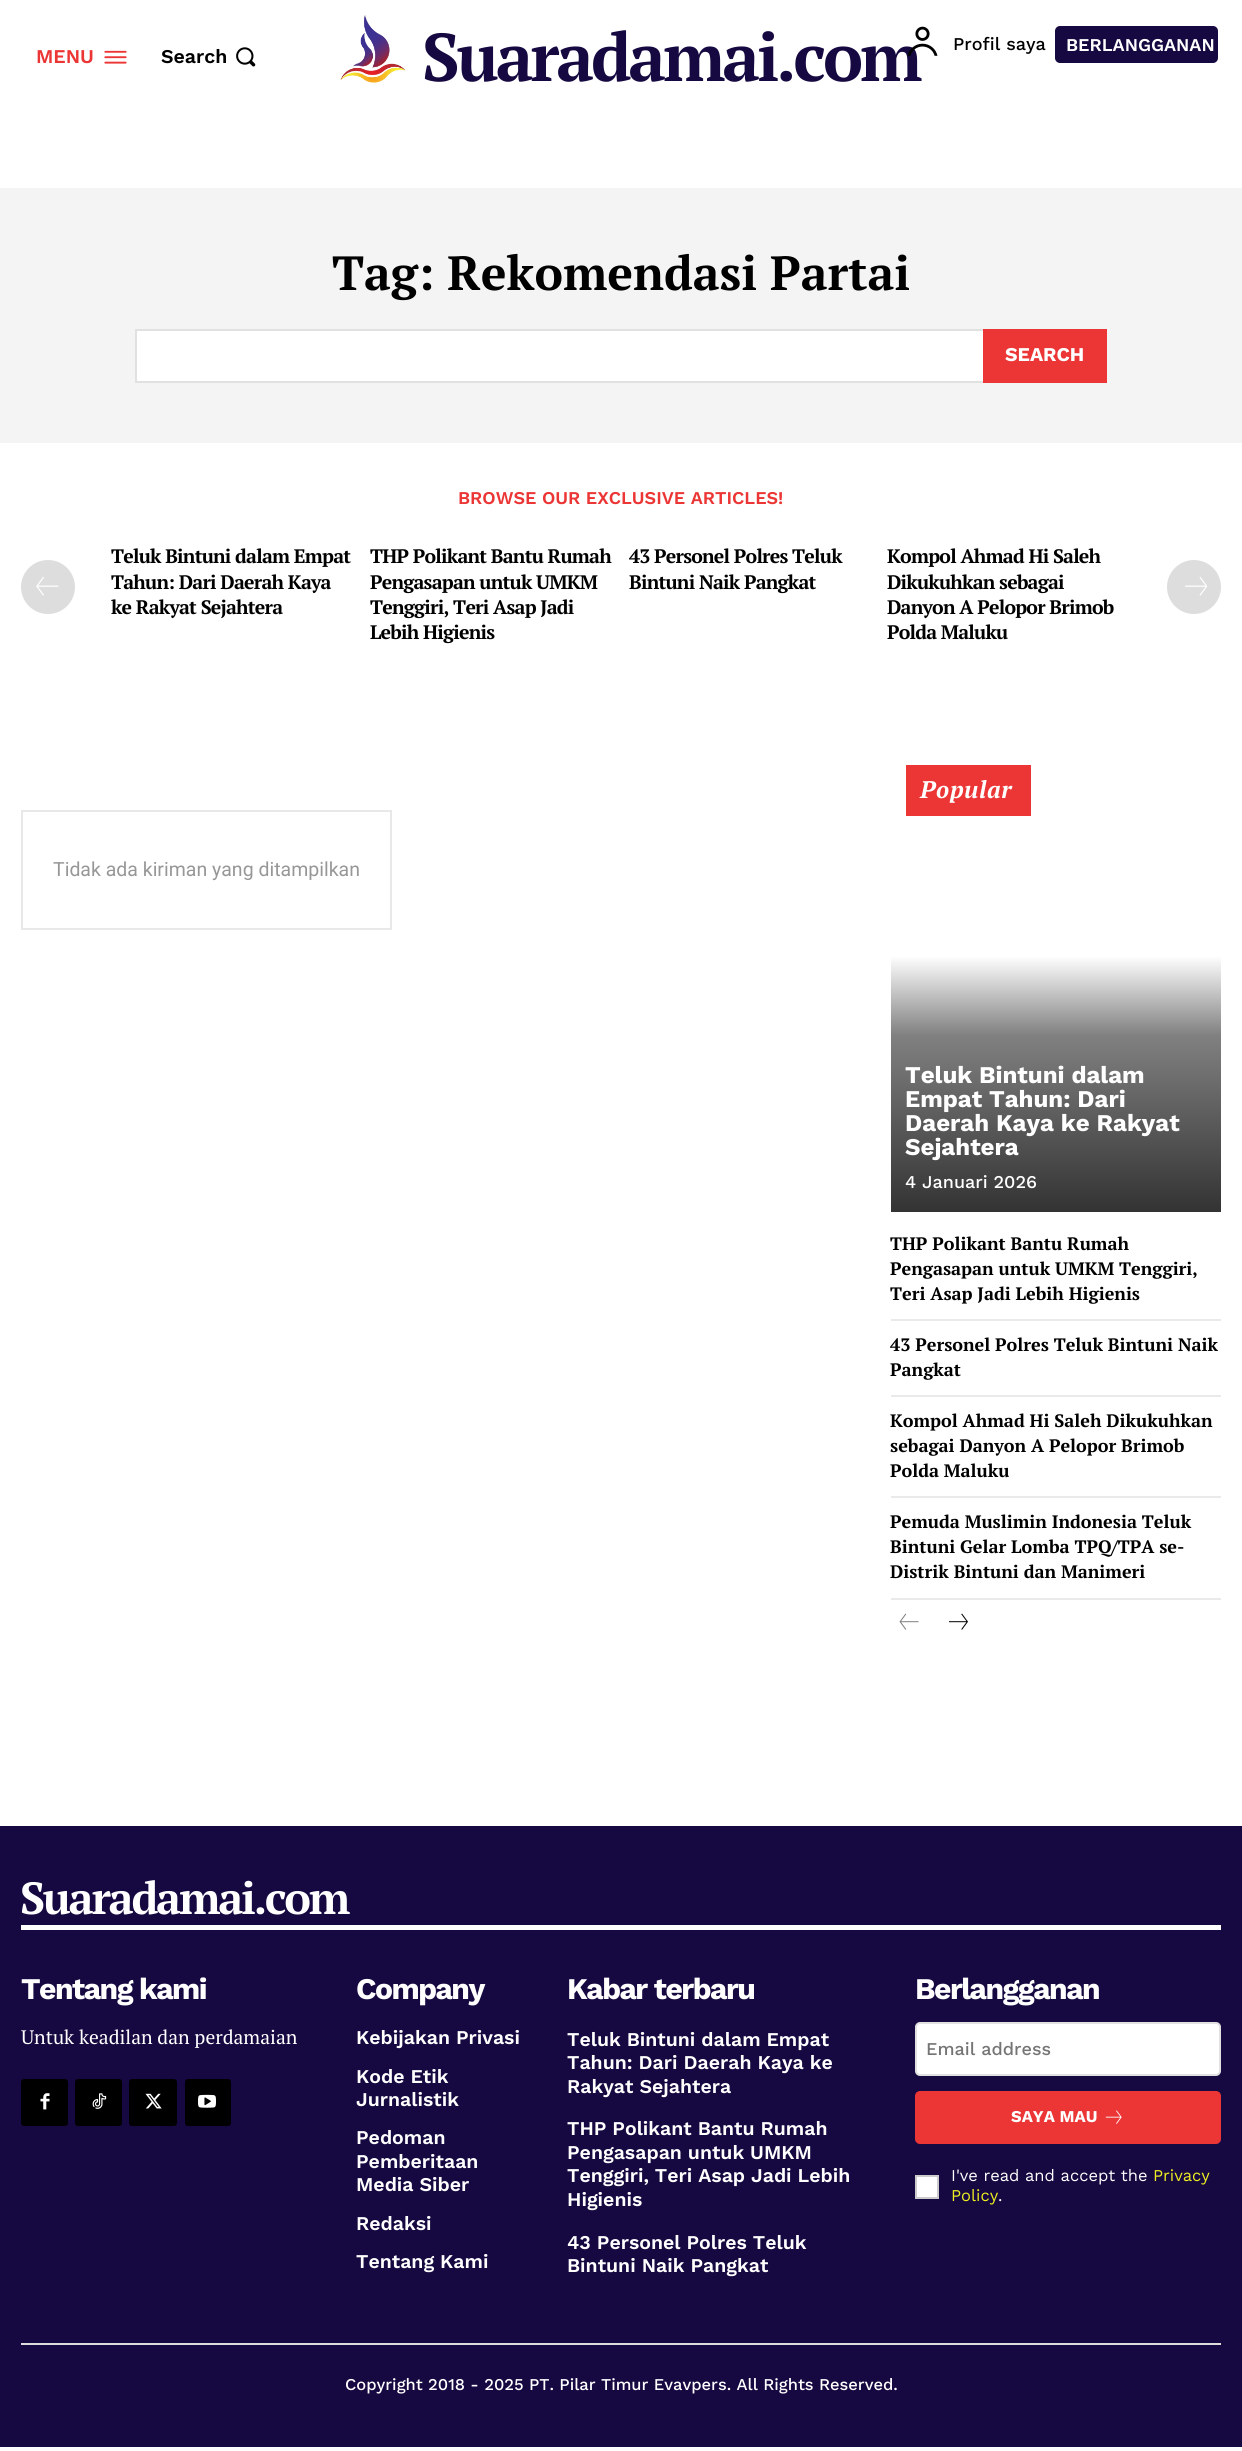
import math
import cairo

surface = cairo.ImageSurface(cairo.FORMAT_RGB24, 1242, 2451)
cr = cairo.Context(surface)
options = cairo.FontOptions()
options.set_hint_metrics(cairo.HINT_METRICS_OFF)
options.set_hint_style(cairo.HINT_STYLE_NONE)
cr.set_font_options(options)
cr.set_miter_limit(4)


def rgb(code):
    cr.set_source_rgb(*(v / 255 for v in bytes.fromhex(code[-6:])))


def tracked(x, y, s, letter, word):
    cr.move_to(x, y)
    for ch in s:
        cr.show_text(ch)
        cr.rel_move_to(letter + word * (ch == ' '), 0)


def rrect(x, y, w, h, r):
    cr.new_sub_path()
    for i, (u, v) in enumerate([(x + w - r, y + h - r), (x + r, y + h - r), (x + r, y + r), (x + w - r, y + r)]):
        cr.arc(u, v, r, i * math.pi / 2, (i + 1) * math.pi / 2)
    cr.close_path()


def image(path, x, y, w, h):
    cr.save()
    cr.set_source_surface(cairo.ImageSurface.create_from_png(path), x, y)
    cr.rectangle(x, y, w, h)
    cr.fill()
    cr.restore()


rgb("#ffffff")
cr.paint()
image("img/1.png", 340, 15, 66, 68)
rgb("#160840")
rrect(1055, 26, 163, 37, 5)
cr.fill()
image("img/3.png", 104, 50, 23, 14)
image("img/4.png", 236, 47, 20, 20)
rgb("#f4f4f4")
cr.rectangle(0, 188, 1242, 255)
cr.fill()
rgb("#ffffff")
cr.rectangle(137, 331, 846, 50)
cr.fill()
cr.rectangle(136, 330, 970, 52)
rgb("#e1e1e1")
cr.stroke()
rgb("#ec3535")
cr.rectangle(983, 329, 124, 54)
cr.fill()
rgb("#dddddd")
cr.arc(48, 587, 27, 0, 2 * math.pi)
cr.fill()
image("img/5.png", 36, 577, 23, 19)
cr.arc(1194, 587, 27, 0, 2 * math.pi)
cr.fill()
image("img/6.png", 1185, 577, 23, 19)
cr.rectangle(22, 811, 369, 118)
rgb("#e8e8e8")
cr.stroke()
rgb("#ec3535")
cr.rectangle(906, 765, 125, 51)
cr.fill()
gradient = cairo.LinearGradient(1056, 1212, 1056, 792)
gradient.add_color_stop_rgba(0, 0.2, 0.2, 0.2, 1)
gradient.add_color_stop_rgba(0.42, 0.502, 0.502, 0.502, 1)
gradient.add_color_stop_rgba(0.61, 1, 1, 1, 1)
gradient.add_color_stop_rgba(1, 1, 1, 1, 1)
cr.set_source(gradient)
cr.rectangle(891, 957, 330, 255)
cr.fill()
for x, y, w, h, color in [
    (891, 1319, 330, 2, "#eaeaea"),
    (891, 1395, 330, 2, "#eaeaea"),
    (891, 1496, 330, 2, "#eaeaea"),
    (891, 1598, 330, 2, "#eaeaea"),
]:
    rgb(color)
    cr.rectangle(x, y, w, h)
    cr.fill()
image("img/7.png", 899, 1613, 20, 17)
image("img/8.png", 949, 1613, 19, 17)
rgb("#160840")
cr.rectangle(0, 1826, 1242, 621)
cr.fill()
rgb("#ffffff")
cr.rectangle(21, 1925, 1200, 5)
cr.fill()
rgb("#000000")
rrect(21, 2079, 47, 47, 3)
cr.fill()
image("img/9.png", 40, 2093, 10, 17)
rrect(75, 2079, 47, 47, 3)
cr.fill()
image("img/10.png", 92, 2093, 15, 16)
rrect(129, 2079, 48, 47, 3)
cr.fill()
image("img/11.png", 145, 2093, 17, 16)
rrect(185, 2079, 46, 47, 3)
cr.fill()
image("img/12.png", 198, 2094, 18, 14)
rgb("#ffffff")
rrect(916, 2023, 304, 52, 4)
cr.fill_preserve()
rgb("#e1e1e1")
cr.stroke()
rgb("#ec3535")
rrect(915, 2091, 306, 53, 5)
cr.fill()
image("img/13.png", 1105, 2110, 17, 14)
rgb("#ffffff")
cr.rectangle(916, 2176, 22, 22)
cr.fill_preserve()
rgb("#cccccc")
cr.stroke()
rgb("#dddddd")
cr.rectangle(21, 2343, 1200, 2)
cr.fill()
cr.select_font_face("PT Serif", cairo.FONT_SLANT_NORMAL, cairo.FONT_WEIGHT_BOLD)
cr.set_font_size(67.5)
rgb("#160840")
tracked(422, 81, "Suaradamai.com", -3, 0)
image("img/2.png", 907, 26, 31, 30)
cr.select_font_face("Work Sans Medium")
cr.set_font_size(18)
rgb("#000000")
cr.move_to(953, 50)
cr.show_text("Profil saya")
cr.select_font_face("Work Sans SemiBold")
rgb("#ffffff")
cr.move_to(1066, 51)
cr.show_text("BERLANGGANAN")
cr.set_font_size(19.5)
rgb("#ec3535")
cr.move_to(36, 63)
cr.show_text("MENU")
rgb("#000000")
cr.move_to(161, 63)
cr.show_text("Search")
cr.select_font_face("PT Serif", cairo.FONT_SLANT_NORMAL, cairo.FONT_WEIGHT_BOLD)
cr.set_font_size(48)
cr.move_to(332, 290)
cr.show_text("Tag: Rekomendasi Partai")
cr.select_font_face("Work Sans", cairo.FONT_SLANT_NORMAL, cairo.FONT_WEIGHT_BOLD)
cr.set_font_size(19.5)
rgb("#ffffff")
cr.move_to(1005, 361)
cr.show_text("SEARCH")
cr.select_font_face("Work Sans SemiBold")
cr.set_font_size(18)
rgb("#ec3535")
cr.move_to(458, 504)
cr.show_text("BROWSE OUR EXCLUSIVE ARTICLES!")
cr.select_font_face("PT Serif", cairo.FONT_SLANT_NORMAL, cairo.FONT_WEIGHT_BOLD)
cr.set_font_size(19.5)
rgb("#000000")
for x, y, s in [
    (111, 563, "Teluk Bintuni dalam Empat"),
    (111, 589, "Tahun: Dari Daerah Kaya"),
    (111, 614, "ke Rakyat Sejahtera"),
    (370, 563, "THP Polikant Bantu Rumah"),
    (370, 589, "Pengasapan untuk UMKM"),
    (370, 614, "Tenggiri, Teri Asap Jadi"),
    (370, 639, "Lebih Higienis"),
    (629, 563, "43 Personel Polres Teluk"),
    (629, 589, "Bintuni Naik Pangkat"),
    (887, 563, "Kompol Ahmad Hi Saleh"),
    (887, 589, "Dikukuhkan sebagai"),
    (887, 614, "Danyon A Pelopor Brimob"),
    (887, 639, "Polda Maluku"),
]:
    tracked(x, y, s, -0.75, 0)
cr.select_font_face("Roboto")
rgb("#979797")
cr.move_to(53, 876)
cr.show_text("Tidak ada kiriman yang ditampilkan")
cr.select_font_face("PT Serif", cairo.FONT_SLANT_ITALIC, cairo.FONT_WEIGHT_BOLD)
cr.set_font_size(24)
rgb("#ffffff")
tracked(920, 798, "Popular", 0.75, 0)
cr.select_font_face("Work Sans", cairo.FONT_SLANT_NORMAL, cairo.FONT_WEIGHT_BOLD)
for x, y, s in [
    (905, 1083, "Teluk Bintuni dalam"),
    (905, 1107, "Empat Tahun: Dari"),
    (905, 1131, "Daerah Kaya ke Rakyat"),
    (905, 1155, "Sejahtera"),
]:
    cr.move_to(x, y)
    cr.show_text(s)
cr.select_font_face("Work Sans Medium")
cr.set_font_size(18)
cr.move_to(905, 1188)
cr.show_text("4 Januari 2026")
cr.select_font_face("PT Serif", cairo.FONT_SLANT_NORMAL, cairo.FONT_WEIGHT_BOLD)
rgb("#000000")
for x, y, s in [
    (890, 1250, "THP Polikant Bantu Rumah"),
    (890, 1275, "Pengasapan untuk UMKM Tenggiri,"),
    (890, 1300, "Teri Asap Jadi Lebih Higienis"),
    (890, 1351, "43 Personel Polres Teluk Bintuni Naik"),
    (890, 1376, "Pangkat"),
    (890, 1427, "Kompol Ahmad Hi Saleh Dikukuhkan"),
    (890, 1452, "sebagai Danyon A Pelopor Brimob"),
    (890, 1477, "Polda Maluku"),
    (890, 1528, "Pemuda Muslimin Indonesia Teluk"),
    (890, 1553, "Bintuni Gelar Lomba TPQ/TPA se-"),
    (890, 1578, "Distrik Bintuni dan Manimeri"),
]:
    cr.move_to(x, y)
    cr.show_text(s)
cr.set_font_size(45)
rgb("#ffffff")
tracked(20, 1914, "Suaradamai.com", -2.25, 0)
cr.select_font_face("Work Sans", cairo.FONT_SLANT_NORMAL, cairo.FONT_WEIGHT_BOLD)
cr.set_font_size(30)
tracked(21, 1999, "Tentang kami", -1.5, 0)
cr.select_font_face("PT Serif")
cr.set_font_size(19.5)
cr.move_to(21, 2044)
cr.show_text("Untuk keadilan dan perdamaian")
cr.select_font_face("Work Sans", cairo.FONT_SLANT_NORMAL, cairo.FONT_WEIGHT_BOLD)
cr.set_font_size(30)
tracked(356, 1999, "Company", -1.5, 0)
cr.select_font_face("Work Sans SemiBold")
cr.set_font_size(19.5)
for x, y, s in [
    (356, 2044, "Kebijakan Privasi"),
    (356, 2083, "Kode Etik"),
    (356, 2106, "Jurnalistik"),
    (356, 2144, "Pedoman"),
    (356, 2168, "Pemberitaan"),
    (356, 2191, "Media Siber"),
    (356, 2230, "Redaksi"),
    (356, 2268, "Tentang Kami"),
]:
    cr.move_to(x, y)
    cr.show_text(s)
cr.select_font_face("Work Sans", cairo.FONT_SLANT_NORMAL, cairo.FONT_WEIGHT_BOLD)
cr.set_font_size(30)
tracked(567, 1999, "Kabar terbaru", -1.5, 0)
cr.select_font_face("Work Sans SemiBold")
cr.set_font_size(19.5)
for x, y, s in [
    (567, 2046, "Teluk Bintuni dalam Empat"),
    (567, 2069, "Tahun: Dari Daerah Kaya ke"),
    (567, 2093, "Rakyat Sejahtera"),
    (567, 2135, "THP Polikant Bantu Rumah"),
    (567, 2159, "Pengasapan untuk UMKM"),
    (567, 2182, "Tenggiri, Teri Asap Jadi Lebih"),
    (567, 2206, "Higienis"),
    (567, 2249, "43 Personel Polres Teluk"),
    (567, 2272, "Bintuni Naik Pangkat"),
]:
    cr.move_to(x, y)
    cr.show_text(s)
cr.select_font_face("Work Sans", cairo.FONT_SLANT_NORMAL, cairo.FONT_WEIGHT_BOLD)
cr.set_font_size(30)
tracked(915, 1999, "Berlangganan", -1.5, 0)
cr.select_font_face("Work Sans Medium")
cr.set_font_size(18)
rgb("#757575")
cr.move_to(926, 2055)
cr.show_text("Email address")
cr.select_font_face("Work Sans", cairo.FONT_SLANT_NORMAL, cairo.FONT_WEIGHT_BOLD)
cr.set_font_size(16.5)
rgb("#ffffff")
cr.move_to(1011, 2122)
cr.show_text("SAYA MAU")
cr.select_font_face("Work Sans")
cr.move_to(951, 2181)
cr.show_text("I've read and accept the")
rgb("#eeee22")
cr.move_to(1153, 2181)
cr.show_text("Privacy")
cr.move_to(951, 2201)
cr.show_text("Policy")
rgb("#ffffff")
cr.move_to(998, 2201)
cr.show_text(".")
cr.select_font_face("Work Sans Medium")
cr.move_to(345, 2390)
cr.show_text("Copyright 2018 - 2025 PT. Pilar Timur Evavpers. All Rights Reserved.")
surface.write_to_png("page.png")
